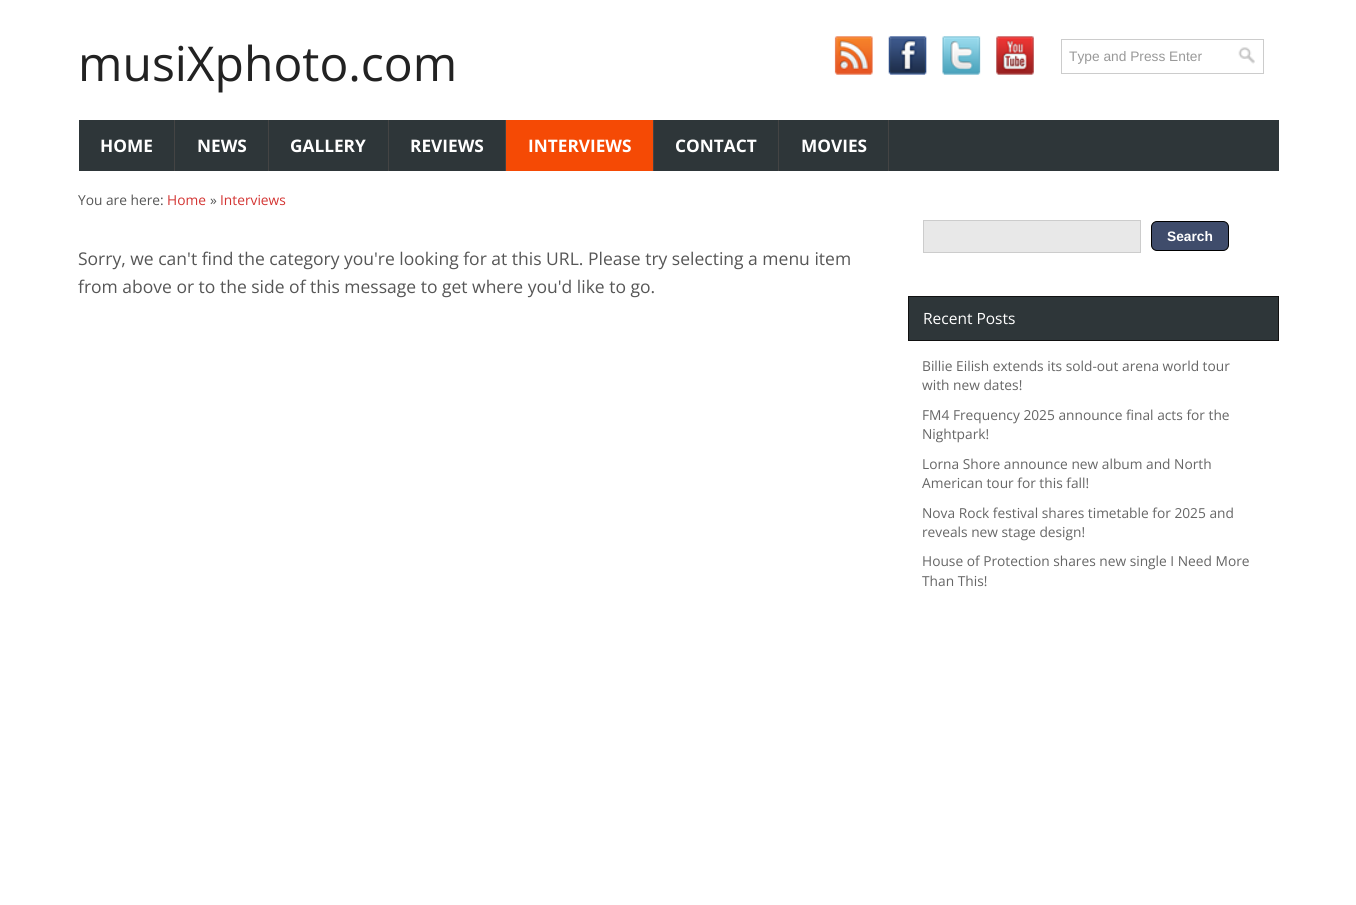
import math
import cairo



def rounded_rect(context, x, y, w, h, r):
    context.new_sub_path()
    for i, (u, v) in enumerate([(x + w - r, y + h - r), (x + r, y + h - r), (x + r, y + r), (x + w - r, y + r)]):
        context.arc(u, v, r, i * math.pi / 2, (i + 1) * math.pi / 2)
    context.close_path()


def draw_image(context, path, x, y, w, h):
    context.save()
    context.set_source_surface(cairo.ImageSurface.create_from_png(path), x, y)
    context.rectangle(x, y, w, h)
    context.fill()
    context.restore()


def draw(context):
    context.set_source_rgb(1, 1, 1)
    context.paint()
    draw_image(context, "images/1.png", 834, 36, 39, 39)
    draw_image(context, "images/2.png", 888, 36, 39, 39)
    draw_image(context, "images/3.png", 942, 36, 39, 39)
    draw_image(context, "images/4.png", 996, 36, 38, 39)
    draw_image(context, "images/5.png", 1238, 47, 17, 17)
    context.rectangle(1061.5, 39.5, 202, 34)
    context.set_source_rgb(204 / 255, 204 / 255, 204 / 255)
    context.set_line_width(1)
    context.stroke()
    context.set_source_rgb(46 / 255, 54 / 255, 57 / 255)
    context.rectangle(79, 120, 1200, 51)
    context.fill()
    context.set_source_rgb(68 / 255, 68 / 255, 68 / 255)
    context.rectangle(174, 120, 1, 51)
    context.fill()
    context.rectangle(268, 120, 1, 51)
    context.fill()
    context.rectangle(388, 120, 1, 51)
    context.fill()
    context.rectangle(505, 120, 1, 51)
    context.fill()
    context.set_source_rgb(245 / 255, 74 / 255, 5 / 255)
    context.rectangle(506, 120, 147, 51)
    context.fill()
    context.set_source_rgb(68 / 255, 68 / 255, 68 / 255)
    context.rectangle(653, 120, 1, 51)
    context.fill()
    context.rectangle(778, 120, 1, 51)
    context.fill()
    context.rectangle(888, 120, 1, 51)
    context.fill()
    context.set_source_rgb(232 / 255, 232 / 255, 232 / 255)
    context.rectangle(923.5, 220.5, 217, 32)
    context.fill_preserve()
    context.set_source_rgb(204 / 255, 204 / 255, 204 / 255)
    context.stroke()
    context.set_source_rgb(63 / 255, 76 / 255, 107 / 255)
    rounded_rect(context, 1151.5, 221.5, 77, 29, 5.5)
    context.fill_preserve()
    context.set_source_rgb(0, 0, 0)
    context.stroke()
    context.set_source_rgb(46 / 255, 54 / 255, 57 / 255)
    context.rectangle(908.5, 296.5, 370, 44)
    context.fill_preserve()
    context.set_source_rgb(17 / 255, 17 / 255, 17 / 255)
    context.stroke()
    context.select_font_face("Open Sans")
    context.set_font_size(48)
    context.set_source_rgb(34 / 255, 34 / 255, 34 / 255)
    context.move_to(78, 81)
    context.show_text("musiXphoto.com")
    context.select_font_face("Liberation Sans")
    context.set_font_size(13.75)
    context.set_source_rgb(153 / 255, 153 / 255, 153 / 255)
    context.move_to(1069, 61)
    context.show_text("Type and Press Enter")
    context.select_font_face("Open Sans", cairo.FontSlant.NORMAL, cairo.FontWeight.BOLD)
    context.set_font_size(17.25)
    context.set_source_rgb(1, 1, 1)
    context.move_to(100, 152)
    context.show_text("HOME")
    context.move_to(197, 152)
    context.show_text("NEWS")
    context.move_to(290, 152)
    context.show_text("GALLERY")
    context.move_to(410, 152)
    context.show_text("REVIEWS")
    context.move_to(528, 152)
    context.show_text("INTERVIEWS")
    context.move_to(675, 152)
    context.show_text("CONTACT")
    context.move_to(801, 152)
    context.show_text("MOVIES")
    context.select_font_face("Open Sans")
    context.set_font_size(13.75)
    context.set_source_rgb(86 / 255, 86 / 255, 86 / 255)
    context.move_to(78, 205)
    context.show_text("You are here:")
    context.set_source_rgb(211 / 255, 52 / 255, 50 / 255)
    context.move_to(167, 205)
    context.show_text("Home")
    context.set_source_rgb(86 / 255, 86 / 255, 86 / 255)
    context.move_to(210, 205)
    context.show_text("»")
    context.set_source_rgb(211 / 255, 52 / 255, 50 / 255)
    context.move_to(220, 205)
    context.show_text("Interviews")
    context.set_font_size(17.5)
    context.set_source_rgb(86 / 255, 86 / 255, 86 / 255)
    context.move_to(78, 265)
    context.show_text("Sorry, we can't find the category you're looking for at this URL. Please try selecting a menu item")
    context.move_to(78, 293)
    context.show_text("from above or to the side of this message to get where you'd like to go.")
    context.select_font_face("Liberation Sans", cairo.FontSlant.NORMAL, cairo.FontWeight.BOLD)
    context.set_font_size(13.75)
    context.set_source_rgb(1, 1, 1)
    context.move_to(1167, 241)
    context.show_text("Search")
    context.select_font_face("Open Sans")
    context.set_font_size(15.5)
    context.move_to(923, 324)
    context.show_text("Recent Posts")
    context.set_font_size(13.75)
    context.set_source_rgb(102 / 255, 102 / 255, 102 / 255)
    context.move_to(922, 371)
    context.show_text("Billie Eilish extends its sold-out arena world tour")
    context.move_to(922, 390)
    context.show_text("with new dates!")
    context.move_to(922, 420)
    context.show_text("FM4 Frequency 2025 announce final acts for the")
    context.move_to(922, 439)
    context.show_text("Nightpark!")
    context.move_to(922, 469)
    context.show_text("Lorna Shore announce new album and North")
    context.move_to(922, 488)
    context.show_text("American tour for this fall!")
    context.move_to(922, 518)
    context.show_text("Nova Rock festival shares timetable for 2025 and")
    context.move_to(922, 537)
    context.show_text("reveals new stage design!")
    context.move_to(922, 566)
    context.show_text("House of Protection shares new single I Need More")
    context.move_to(922, 586)
    context.show_text("Than This!")


surface = cairo.ImageSurface(cairo.Format.RGB24, 1356, 905)
context = cairo.Context(surface)
options = cairo.FontOptions()
options.set_hint_metrics(cairo.HintMetrics.OFF)
options.set_hint_style(cairo.HintStyle.NONE)
context.set_font_options(options)
context.set_miter_limit(4)
draw(context)
surface.write_to_png("out.png")
